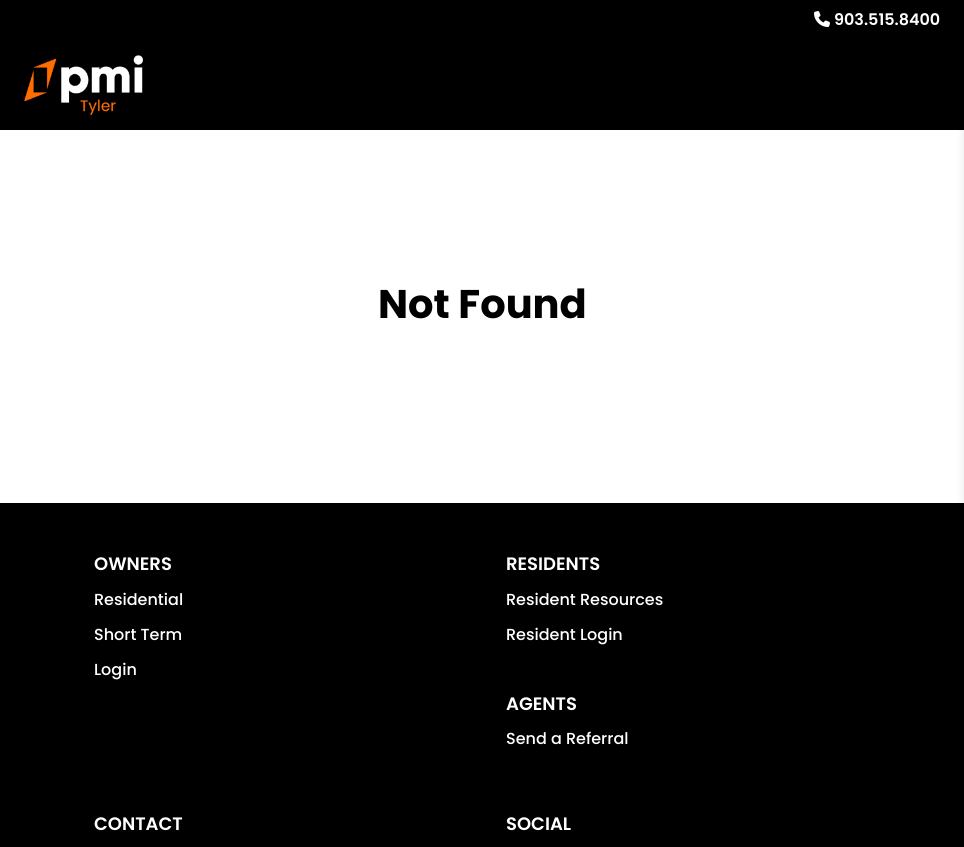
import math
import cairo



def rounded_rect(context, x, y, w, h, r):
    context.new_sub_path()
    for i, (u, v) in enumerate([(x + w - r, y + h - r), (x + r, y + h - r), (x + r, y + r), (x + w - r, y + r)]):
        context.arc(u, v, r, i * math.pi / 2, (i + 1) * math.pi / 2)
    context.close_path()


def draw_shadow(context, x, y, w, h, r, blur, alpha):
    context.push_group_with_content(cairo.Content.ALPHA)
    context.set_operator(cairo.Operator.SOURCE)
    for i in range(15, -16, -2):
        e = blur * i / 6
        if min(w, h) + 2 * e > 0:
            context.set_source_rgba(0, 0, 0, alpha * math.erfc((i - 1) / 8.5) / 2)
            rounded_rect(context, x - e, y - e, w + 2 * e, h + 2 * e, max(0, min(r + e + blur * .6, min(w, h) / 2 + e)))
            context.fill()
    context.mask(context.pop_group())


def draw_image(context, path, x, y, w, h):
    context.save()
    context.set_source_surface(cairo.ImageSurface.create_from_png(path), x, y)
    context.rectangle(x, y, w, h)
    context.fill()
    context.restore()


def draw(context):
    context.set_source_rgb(1, 1, 1)
    context.paint()
    context.set_source_rgb(0, 0, 0)
    context.rectangle(0, 0, 964, 130)
    context.fill()
    draw_image(context, "images/1.png", 814, 11, 16, 16)
    draw_image(context, "images/2.png", 24, 55, 119, 60)
    context.rectangle(0, 503, 964, 344)
    context.fill()
    context.set_source_rgb(0, 0, 0)
    draw_shadow(context, 964, 0, 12, 847, 0, 4, 0.1)
    context.select_font_face("Poppins SemiBold")
    context.set_font_size(16)
    context.set_source_rgb(1, 1, 1)
    context.move_to(834, 25)
    context.show_text("903.515.8400")
    context.select_font_face("Poppins", cairo.FontSlant.NORMAL, cairo.FontWeight.BOLD)
    context.set_font_size(40)
    context.set_source_rgb(0, 0, 0)
    context.move_to(378, 318)
    context.show_text("Not Found")
    context.select_font_face("Poppins SemiBold")
    context.set_font_size(18)
    context.set_source_rgb(1, 1, 1)
    context.move_to(94, 570)
    context.show_text("OWNERS")
    context.select_font_face("Poppins Medium")
    context.set_font_size(16)
    context.move_to(94, 605)
    context.show_text("Residential")
    context.move_to(94, 640)
    context.show_text("Short Term")
    context.move_to(94, 675)
    context.show_text("Login")
    context.select_font_face("Poppins SemiBold")
    context.set_font_size(18)
    context.move_to(506, 570)
    context.show_text("RESIDENTS")
    context.select_font_face("Poppins Medium")
    context.set_font_size(16)
    context.move_to(506, 605)
    context.show_text("Resident Resources")
    context.move_to(506, 640)
    context.show_text("Resident Login")
    context.select_font_face("Poppins SemiBold")
    context.set_font_size(18)
    context.move_to(506, 710)
    context.show_text("AGENTS")
    context.select_font_face("Poppins Medium")
    context.set_font_size(16)
    context.move_to(506, 744)
    context.show_text("Send a Referral")
    context.select_font_face("Poppins SemiBold")
    context.set_font_size(18)
    context.move_to(94, 830)
    context.show_text("CONTACT")
    context.move_to(506, 830)
    context.show_text("SOCIAL")


surface = cairo.ImageSurface(cairo.Format.RGB24, 964, 847)
context = cairo.Context(surface)
options = cairo.FontOptions()
options.set_hint_metrics(cairo.HintMetrics.OFF)
options.set_hint_style(cairo.HintStyle.NONE)
context.set_font_options(options)
context.set_miter_limit(4)
draw(context)
surface.write_to_png("out.png")
